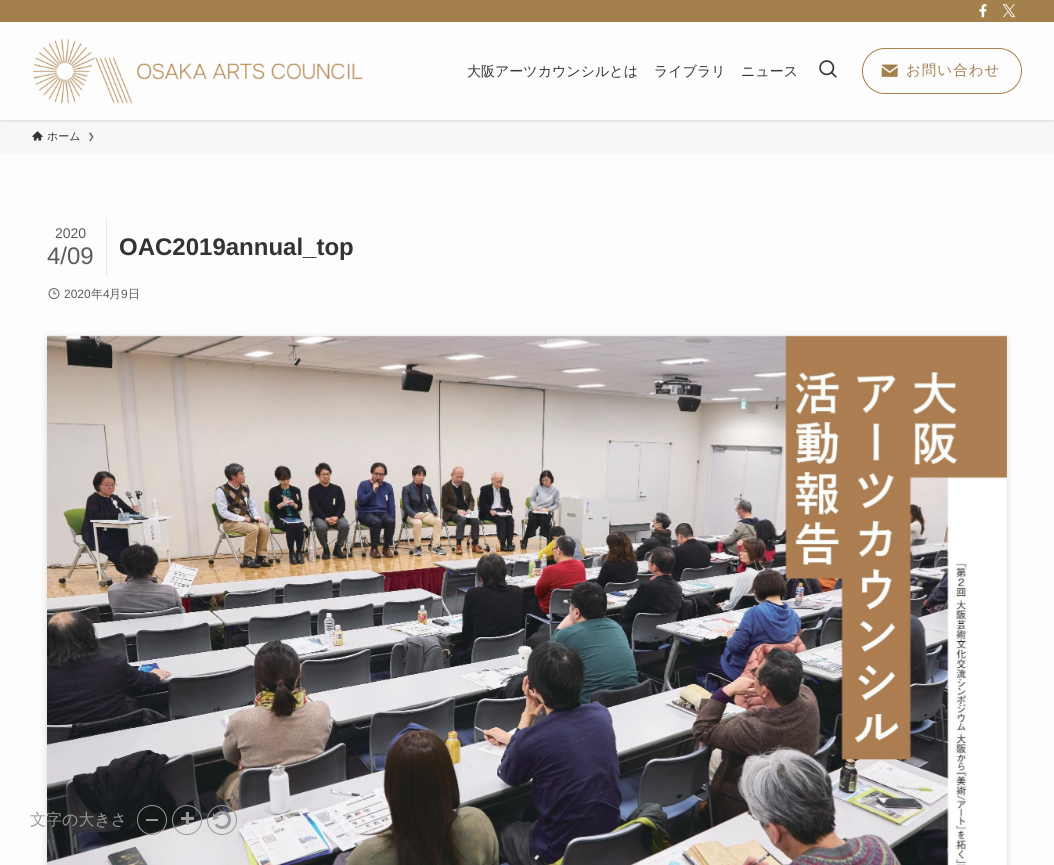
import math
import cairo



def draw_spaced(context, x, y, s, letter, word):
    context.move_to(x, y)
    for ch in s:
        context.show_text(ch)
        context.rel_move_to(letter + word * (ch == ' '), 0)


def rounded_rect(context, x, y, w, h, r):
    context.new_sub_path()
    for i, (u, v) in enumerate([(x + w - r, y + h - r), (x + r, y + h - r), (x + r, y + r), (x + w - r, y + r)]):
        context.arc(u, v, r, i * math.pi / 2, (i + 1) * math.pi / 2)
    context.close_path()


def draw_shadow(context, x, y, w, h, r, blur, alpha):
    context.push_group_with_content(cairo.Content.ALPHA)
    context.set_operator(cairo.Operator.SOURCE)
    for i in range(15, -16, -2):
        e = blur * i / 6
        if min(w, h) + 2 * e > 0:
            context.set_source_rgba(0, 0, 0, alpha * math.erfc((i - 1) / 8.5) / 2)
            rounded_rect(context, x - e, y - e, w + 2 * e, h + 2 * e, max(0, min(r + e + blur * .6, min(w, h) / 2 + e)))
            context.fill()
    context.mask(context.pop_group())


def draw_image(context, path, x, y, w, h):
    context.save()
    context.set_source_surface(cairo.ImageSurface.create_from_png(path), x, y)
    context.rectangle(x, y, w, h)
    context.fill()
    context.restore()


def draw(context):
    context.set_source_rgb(253 / 255, 253 / 255, 253 / 255)
    context.paint()
    context.set_source_rgb(247 / 255, 247 / 255, 247 / 255)
    context.rectangle(0, 120, 1054, 34)
    context.fill()
    context.save()
    context.rectangle(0, 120, 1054, 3)
    context.clip()
    context.set_source_rgb(0, 0, 0)
    draw_shadow(context, 0, 1, 1054, 120, 0, 2, 0.12)
    context.restore()
    context.set_source_rgb(164 / 255, 128 / 255, 76 / 255)
    context.rectangle(0, 0, 1054, 22)
    context.fill()
    draw_image(context, "images/1.png", 979, 4, 8, 14)
    draw_image(context, "images/2.png", 1002, 4, 14, 14)
    draw_image(context, "images/3.png", 32, 39, 331, 65)
    draw_image(context, "images/4.png", 819, 60, 18, 18)
    rounded_rect(context, 862.5, 48.5, 159, 45, 22.5)
    context.set_line_width(1)
    context.stroke()
    draw_image(context, "images/5.png", 881, 64, 17, 13)
    draw_image(context, "images/6.png", 32, 131, 11, 10)
    context.set_source_rgb(90 / 255, 90 / 255, 90 / 255)
    context.new_path()
    context.move_to(90.5, 132.5)
    context.line_to(89, 133)
    context.line_to(92, 137)
    context.line_to(89, 141)
    context.line_to(90.5, 141)
    context.line_to(93.5, 137)
    context.close_path()
    context.fill()
    context.set_source_rgb(232 / 255, 232 / 255, 232 / 255)
    context.rectangle(106, 218, 1, 58)
    context.fill()
    draw_image(context, "images/7.png", 48, 288, 12, 12)
    context.set_source_rgb(0, 0, 0)
    draw_shadow(context, 51, 344, 952, 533, 0, 4, 0.2)
    draw_shadow(context, 47, 338, 960, 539, 0, 4, 0.1)
    draw_image(context, "images/8.png", 47, 335, 960, 530)
    context.arc(152, 820, 14.5, 0, 2 * math.pi)
    context.set_source_rgb(153 / 255, 153 / 255, 153 / 255)
    context.stroke()
    context.rectangle(146, 819, 12, 2)
    context.fill()
    context.arc(187, 820, 14.5, 0, 2 * math.pi)
    context.stroke()
    draw_image(context, "images/9.png", 181, 812, 13, 13)
    context.arc(222, 820, 14.5, 0, 2 * math.pi)
    context.stroke()
    draw_image(context, "images/10.png", 213, 811, 18, 18)
    context.select_font_face("WenQuanYi Zen Hei Medium")
    context.set_font_size(14)
    context.set_source_rgb(51 / 255, 51 / 255, 51 / 255)
    context.move_to(467, 76)
    context.show_text("大阪アーツカウンシルとは")
    context.move_to(654, 76)
    context.show_text("ライブラリ")
    context.move_to(741, 76)
    context.show_text("ニュース")
    context.set_font_size(14.5)
    context.set_source_rgb(164 / 255, 128 / 255, 76 / 255)
    draw_spaced(context, 906, 75, "お問い合わせ", 1, 0)
    context.set_font_size(11)
    context.set_source_rgb(51 / 255, 51 / 255, 51 / 255)
    context.move_to(47, 140)
    context.show_text("ホーム")
    context.select_font_face("Liberation Sans")
    context.set_font_size(14)
    context.set_source_rgb(91 / 255, 91 / 255, 91 / 255)
    context.move_to(55, 238)
    context.show_text("2020")
    context.set_font_size(24)
    context.move_to(47, 264)
    context.show_text("4/09")
    context.select_font_face("Liberation Sans", cairo.FontSlant.NORMAL, cairo.FontWeight.BOLD)
    context.set_source_rgb(51 / 255, 51 / 255, 51 / 255)
    context.move_to(119, 255)
    context.show_text("OAC2019annual_top")
    context.select_font_face("Liberation Sans")
    context.set_font_size(12)
    context.set_source_rgb(91 / 255, 91 / 255, 91 / 255)
    context.move_to(64, 298)
    context.show_text("2020")
    context.select_font_face("WenQuanYi Zen Hei Medium")
    context.move_to(91, 298)
    context.show_text("年")
    context.select_font_face("Liberation Sans")
    context.move_to(103, 298)
    context.show_text("4")
    context.select_font_face("WenQuanYi Zen Hei Medium")
    context.move_to(109, 298)
    context.show_text("月")
    context.select_font_face("Liberation Sans")
    context.move_to(121, 298)
    context.show_text("9")
    context.select_font_face("WenQuanYi Zen Hei Medium")
    context.move_to(128, 298)
    context.show_text("日")
    context.set_font_size(16)
    context.set_source_rgb(153 / 255, 153 / 255, 153 / 255)
    context.move_to(30, 825)
    context.show_text("文字の大きさ")


surface = cairo.ImageSurface(cairo.Format.RGB24, 1054, 865)
context = cairo.Context(surface)
options = cairo.FontOptions()
options.set_hint_metrics(cairo.HintMetrics.OFF)
options.set_hint_style(cairo.HintStyle.NONE)
context.set_font_options(options)
context.set_miter_limit(4)
draw(context)
surface.write_to_png("out.png")
